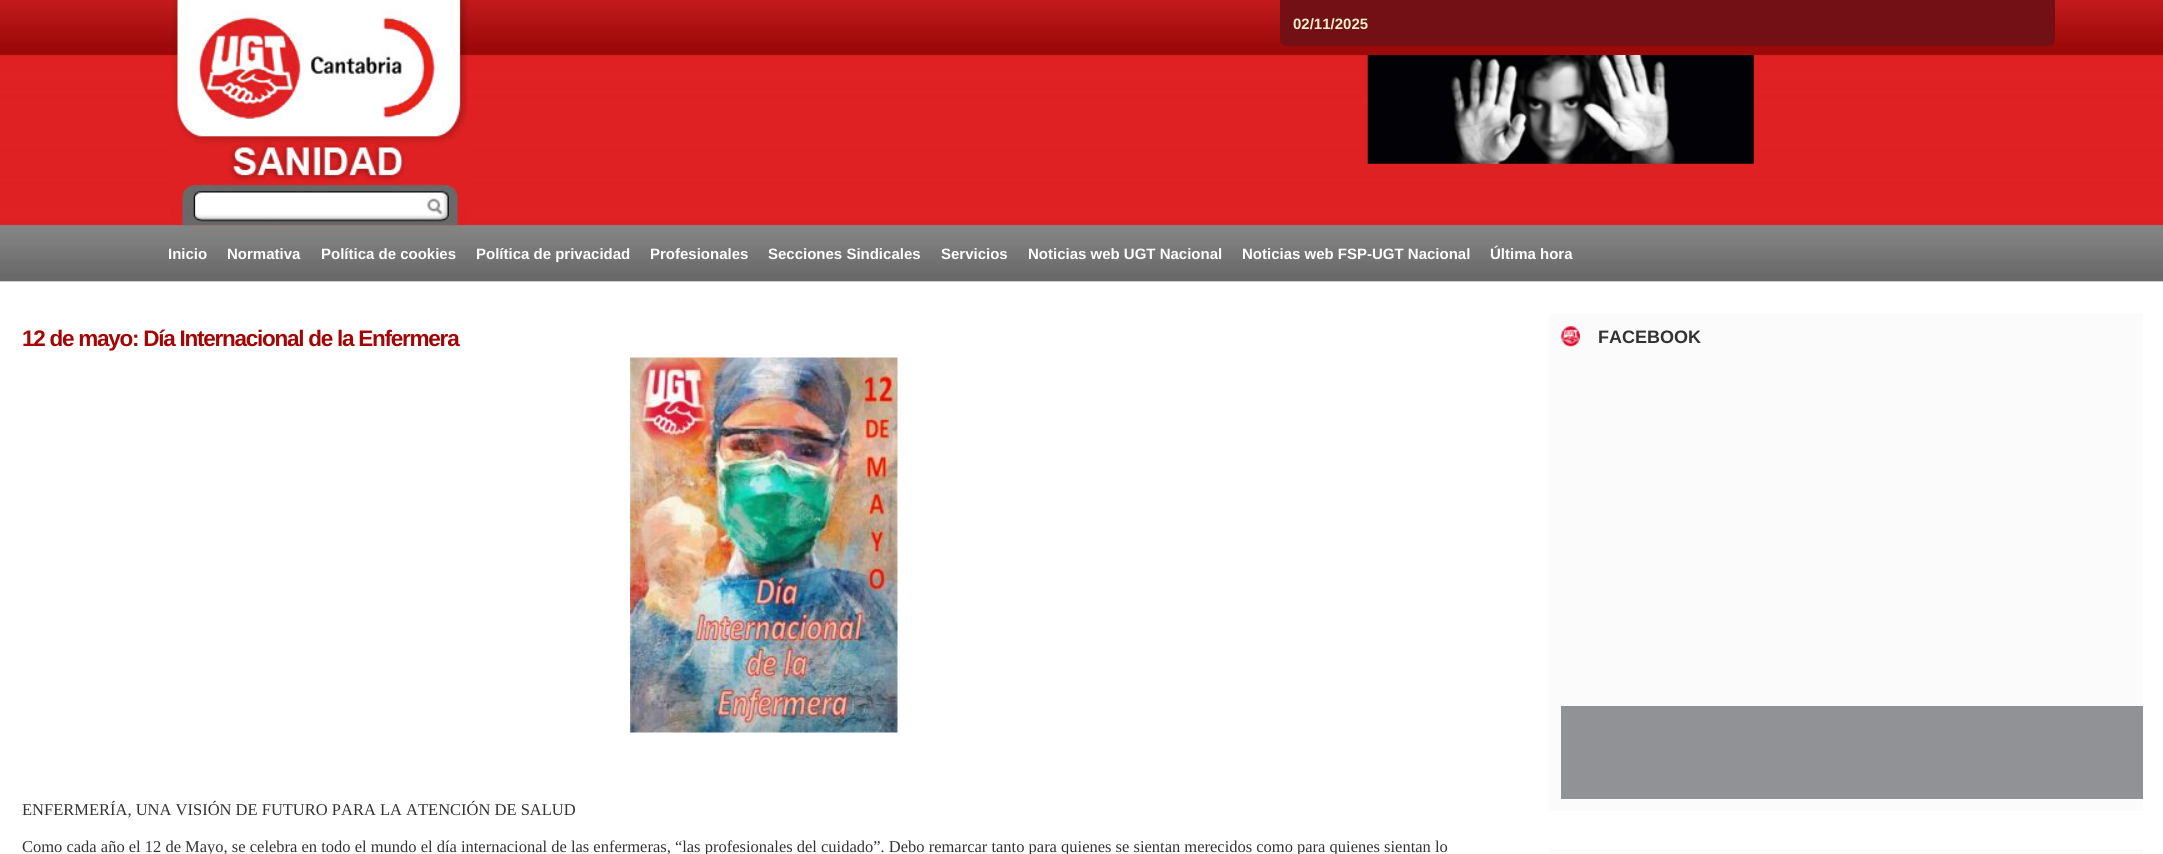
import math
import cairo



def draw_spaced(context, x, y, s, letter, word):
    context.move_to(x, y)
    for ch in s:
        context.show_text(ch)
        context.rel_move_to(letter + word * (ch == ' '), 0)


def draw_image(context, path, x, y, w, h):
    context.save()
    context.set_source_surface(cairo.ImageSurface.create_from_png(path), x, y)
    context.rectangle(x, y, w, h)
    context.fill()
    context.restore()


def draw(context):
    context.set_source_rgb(1, 1, 1)
    context.paint()
    draw_image(context, "images/1.png", 0, 0, 2163, 289)
    draw_image(context, "images/2.png", 171, 0, 297, 225)
    context.set_source_rgb(115 / 255, 16 / 255, 21 / 255)
    context.new_path()
    context.move_to(1280, 0)
    context.line_to(2055, 0)
    context.line_to(2055, 40)
    context.curve_to(2055, 43.5, 2052.5, 46, 2049, 46)
    context.line_to(1286, 46)
    context.curve_to(1282.5, 46, 1280, 43.5, 1280, 40)
    context.close_path()
    context.fill()
    draw_image(context, "images/3.png", 1367, 55, 387, 109)
    draw_image(context, "images/4.png", 630, 357, 268, 376)
    context.set_source_rgb(251 / 255, 251 / 255, 251 / 255)
    context.rectangle(1549, 314, 594, 497)
    context.fill()
    draw_image(context, "images/5.png", 1561, 326, 19, 21)
    context.set_source_rgb(145 / 255, 146 / 255, 150 / 255)
    context.rectangle(1561, 706, 582, 93)
    context.fill()
    context.set_source_rgb(251 / 255, 251 / 255, 251 / 255)
    context.rectangle(1549, 849, 594, 5)
    context.fill()
    context.select_font_face("Liberation Sans", cairo.FontSlant.NORMAL, cairo.FontWeight.BOLD)
    context.set_font_size(15)
    context.set_source_rgb(238 / 255, 238 / 255, 203 / 255)
    context.move_to(1293, 29)
    context.show_text("02/11/2025")
    context.set_source_rgb(1, 1, 1)
    context.move_to(168, 259)
    context.show_text("Inicio")
    context.move_to(227, 259)
    context.show_text("Normativa")
    context.move_to(321, 259)
    context.show_text("Política de cookies")
    context.move_to(476, 259)
    context.show_text("Política de privacidad")
    context.move_to(650, 259)
    context.show_text("Profesionales")
    context.move_to(768, 259)
    context.show_text("Secciones Sindicales")
    context.move_to(941, 259)
    context.show_text("Servicios")
    context.move_to(1028, 259)
    context.show_text("Noticias web UGT Nacional")
    context.move_to(1242, 259)
    context.show_text("Noticias web FSP-UGT Nacional")
    context.move_to(1490, 259)
    context.show_text("Última hora")
    context.set_font_size(22.5)
    context.set_source_rgb(164 / 255, 5 / 255, 5 / 255)
    draw_spaced(context, 22, 346, "12 de mayo: Día Internacional de la Enfermera", -1.25, 0)
    context.select_font_face("Liberation Serif")
    context.set_font_size(16.5)
    context.set_source_rgb(51 / 255, 51 / 255, 51 / 255)
    context.move_to(22, 815)
    context.show_text("ENFERMERÍA, UNA VISIÓN DE FUTURO PARA LA ATENCIÓN DE SALUD")
    context.move_to(22, 852)
    context.show_text("Como cada año el 12 de Mayo, se celebra en todo el mundo el día internacional de las enfermeras, “las profesionales del cuidado”. Debo remarcar tanto para quienes se sientan merecidos como para quienes sientan lo")
    context.select_font_face("Liberation Sans", cairo.FontSlant.NORMAL, cairo.FontWeight.BOLD)
    context.set_font_size(18)
    context.move_to(1598, 343)
    context.show_text("FACEBOOK")


surface = cairo.ImageSurface(cairo.Format.RGB24, 2163, 854)
context = cairo.Context(surface)
options = cairo.FontOptions()
options.set_hint_metrics(cairo.HintMetrics.OFF)
options.set_hint_style(cairo.HintStyle.NONE)
context.set_font_options(options)
context.set_miter_limit(4)
draw(context)
surface.write_to_png("out.png")
